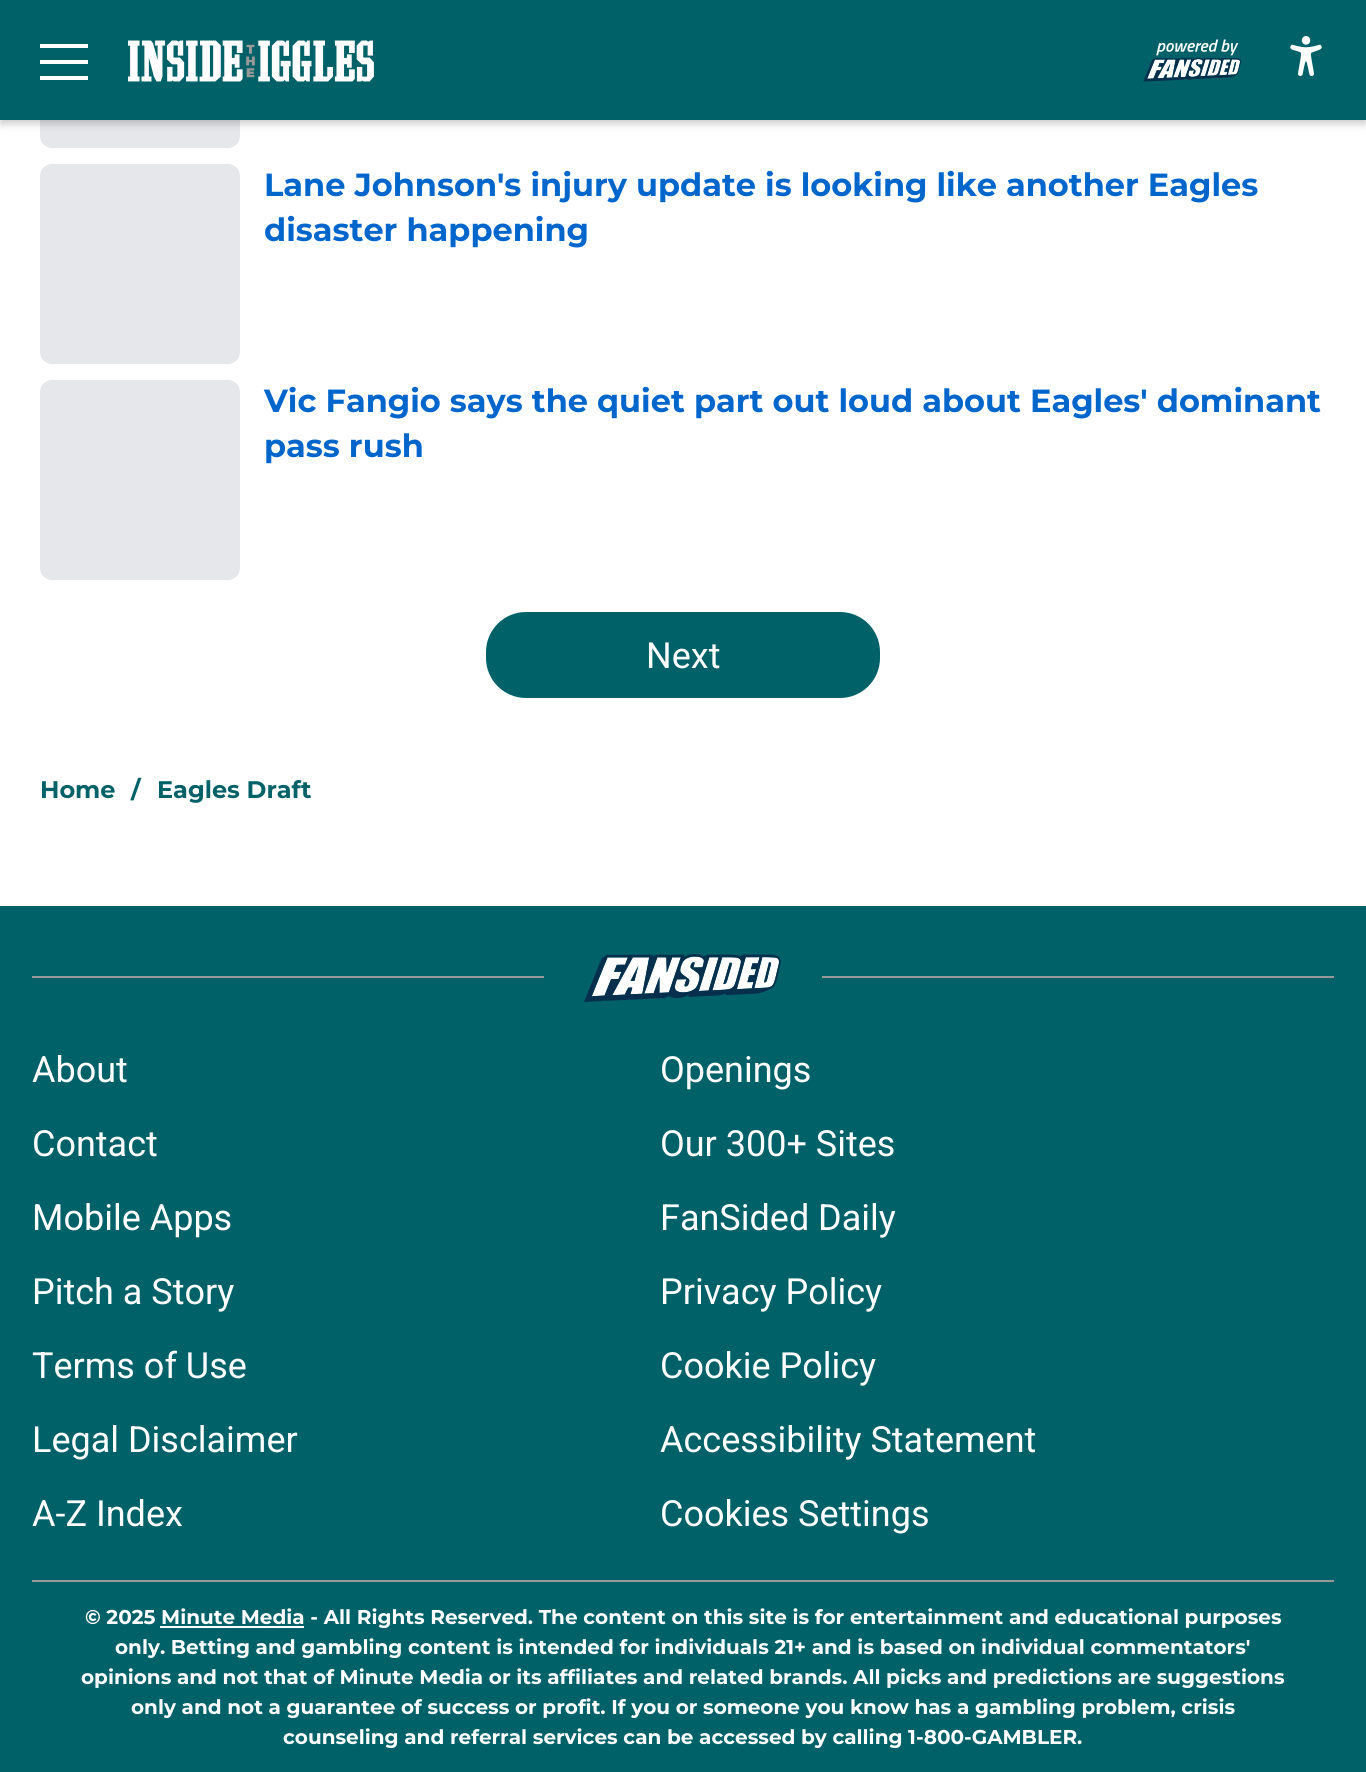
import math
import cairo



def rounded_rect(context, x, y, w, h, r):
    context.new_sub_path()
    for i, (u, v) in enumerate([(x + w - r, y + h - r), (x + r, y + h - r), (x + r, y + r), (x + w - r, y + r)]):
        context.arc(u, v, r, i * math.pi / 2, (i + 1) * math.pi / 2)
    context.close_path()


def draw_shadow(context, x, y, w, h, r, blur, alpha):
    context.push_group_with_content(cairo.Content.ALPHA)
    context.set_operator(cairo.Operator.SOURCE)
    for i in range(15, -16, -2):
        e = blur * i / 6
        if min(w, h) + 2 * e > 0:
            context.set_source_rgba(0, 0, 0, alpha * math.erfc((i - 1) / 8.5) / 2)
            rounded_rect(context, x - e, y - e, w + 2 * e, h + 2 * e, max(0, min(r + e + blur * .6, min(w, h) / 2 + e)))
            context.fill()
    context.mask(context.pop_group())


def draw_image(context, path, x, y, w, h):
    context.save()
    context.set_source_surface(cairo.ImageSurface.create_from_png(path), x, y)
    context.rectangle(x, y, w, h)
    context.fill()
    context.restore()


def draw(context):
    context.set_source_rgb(1, 1, 1)
    context.paint()
    context.set_source_rgb(229 / 255, 231 / 255, 235 / 255)
    rounded_rect(context, 40, -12, 200, 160, 12)
    context.fill()
    context.set_source_rgb(0, 0, 0)
    draw_shadow(context, 0, 4, 1366, 120, 0, 4, 0.2)
    context.set_source_rgb(0, 97 / 255, 104 / 255)
    context.rectangle(0, 0, 1366, 120)
    context.fill()
    context.set_source_rgb(1, 1, 1)
    context.rectangle(40, 44, 48, 4)
    context.fill()
    context.rectangle(40, 60, 48, 4)
    context.fill()
    context.rectangle(40, 76, 48, 4)
    context.fill()
    draw_image(context, "images/1.png", 128, 40, 246, 42)
    draw_image(context, "images/2.png", 1143, 39, 98, 43)
    draw_image(context, "images/3.png", 1290, 36, 32, 40)
    context.set_source_rgb(229 / 255, 231 / 255, 235 / 255)
    rounded_rect(context, 40, 164, 200, 200, 12)
    context.fill()
    rounded_rect(context, 40, 380, 200, 200, 12)
    context.fill()
    context.set_source_rgb(0, 97 / 255, 104 / 255)
    rounded_rect(context, 486, 612, 394, 86, 40)
    context.fill()
    context.rectangle(0, 906, 1366, 866)
    context.fill()
    context.set_source_rgb(153 / 255, 153 / 255, 153 / 255)
    context.rectangle(32, 976, 512, 2)
    context.fill()
    draw_image(context, "images/4.png", 584, 954, 197, 48)
    context.rectangle(822, 976, 512, 2)
    context.fill()
    context.rectangle(32, 1580, 1302, 2)
    context.fill()
    context.set_source_rgb(1, 1, 1)
    context.rectangle(160, 1626, 144, 2)
    context.fill()
    context.select_font_face("Montserrat Thin")
    context.set_font_size(32)
    context.set_source_rgb(0, 102 / 255, 204 / 255)
    context.move_to(264, 196)
    context.show_text("Lane Johnson's injury update is looking like another Eagles")
    context.move_to(264, 241)
    context.show_text("disaster happening")
    context.move_to(264, 412)
    context.show_text("Vic Fangio says the quiet part out loud about Eagles' dominant")
    context.move_to(264, 457)
    context.show_text("pass rush")
    context.select_font_face("Roboto")
    context.set_font_size(36)
    context.set_source_rgb(1, 1, 1)
    context.move_to(646, 668)
    context.show_text("Next")
    context.select_font_face("Montserrat Thin")
    context.set_font_size(24)
    context.set_source_rgb(0, 97 / 255, 104 / 255)
    context.move_to(40, 798)
    context.show_text("Home")
    context.move_to(131, 798)
    context.show_text("/")
    context.move_to(157, 798)
    context.show_text("Eagles Draft")
    context.select_font_face("Roboto")
    context.set_font_size(36)
    context.set_source_rgb(1, 1, 1)
    context.move_to(32, 1082)
    context.show_text("About")
    context.move_to(660, 1082)
    context.show_text("Openings")
    context.move_to(32, 1156)
    context.show_text("Contact")
    context.move_to(660, 1156)
    context.show_text("Our 300+ Sites")
    context.move_to(32, 1230)
    context.show_text("Mobile Apps")
    context.move_to(660, 1230)
    context.show_text("FanSided Daily")
    context.move_to(32, 1304)
    context.show_text("Pitch a Story")
    context.move_to(660, 1304)
    context.show_text("Privacy Policy")
    context.move_to(32, 1378)
    context.show_text("Terms of Use")
    context.move_to(660, 1378)
    context.show_text("Cookie Policy")
    context.move_to(32, 1452)
    context.show_text("Legal Disclaimer")
    context.move_to(660, 1452)
    context.show_text("Accessibility Statement")
    context.move_to(32, 1526)
    context.show_text("A-Z Index")
    context.move_to(660, 1526)
    context.show_text("Cookies Settings")
    context.select_font_face("Montserrat Thin")
    context.set_font_size(20)
    context.move_to(85, 1624)
    context.show_text("© 2025 Minute Media - All Rights Reserved. The content on this site is for entertainment and educational purposes")
    context.move_to(115, 1654)
    context.show_text("only. Betting and gambling content is intended for individuals 21+ and is based on individual commentators'")
    context.move_to(81, 1684)
    context.show_text("opinions and not that of Minute Media or its affiliates and related brands. All picks and predictions are suggestions")
    context.move_to(131, 1714)
    context.show_text("only and not a guarantee of success or profit. If you or someone you know has a gambling problem, crisis")
    context.move_to(283, 1744)
    context.show_text("counseling and referral services can be accessed by calling 1-800-GAMBLER.")


surface = cairo.ImageSurface(cairo.Format.RGB24, 1366, 1772)
context = cairo.Context(surface)
options = cairo.FontOptions()
options.set_hint_metrics(cairo.HintMetrics.OFF)
options.set_hint_style(cairo.HintStyle.NONE)
context.set_font_options(options)
context.set_miter_limit(4)
draw(context)
surface.write_to_png("out.png")
